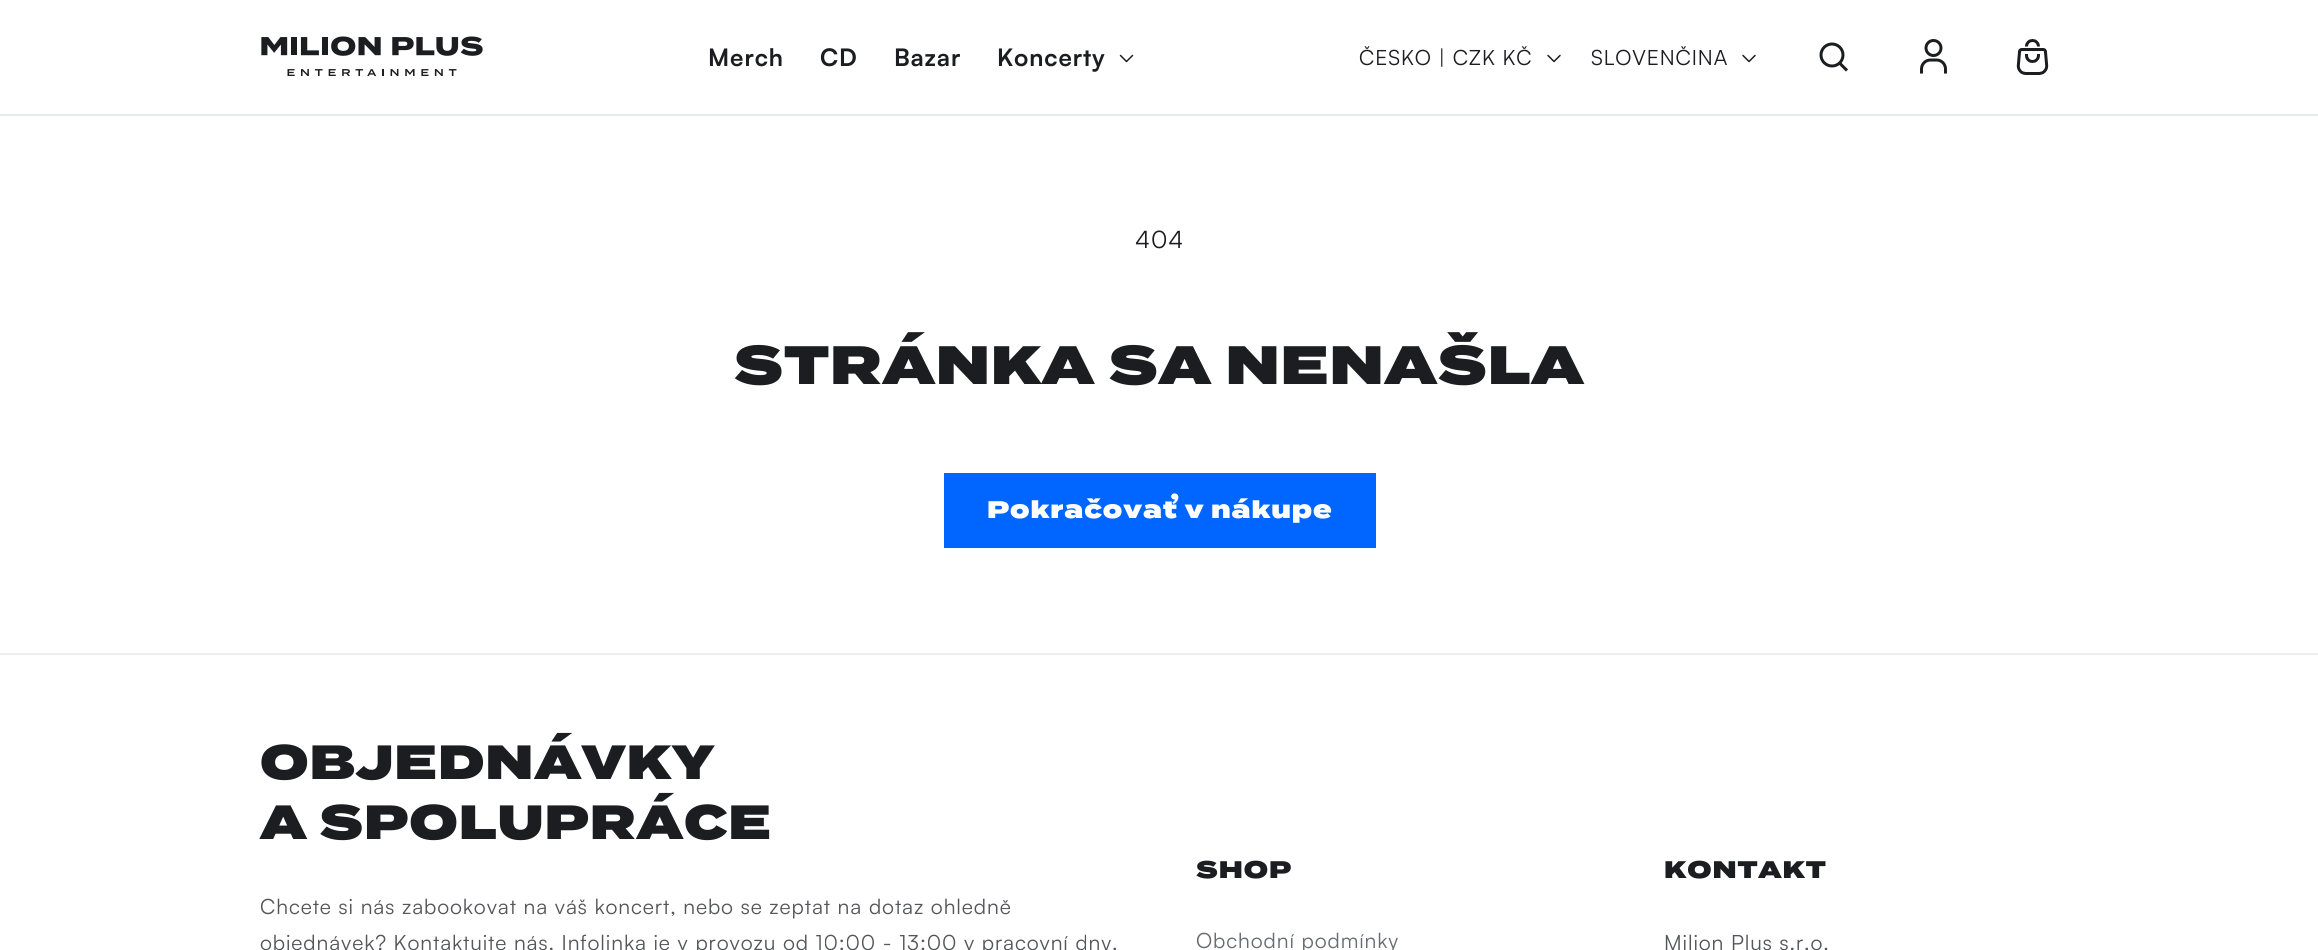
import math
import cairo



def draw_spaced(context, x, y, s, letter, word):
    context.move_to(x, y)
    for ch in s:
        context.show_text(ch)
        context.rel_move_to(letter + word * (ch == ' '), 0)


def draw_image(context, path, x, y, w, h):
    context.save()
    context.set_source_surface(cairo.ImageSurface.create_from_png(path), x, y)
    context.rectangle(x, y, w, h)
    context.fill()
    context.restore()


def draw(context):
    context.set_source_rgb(1, 1, 1)
    context.paint()
    context.set_source_rgb(230 / 255, 235 / 255, 237 / 255)
    context.rectangle(0, 114, 2318, 2)
    context.fill()
    draw_image(context, "images/1.png", 261, 36, 222, 41)
    draw_image(context, "images/2.png", 1119, 54, 15, 9)
    draw_image(context, "images/3.png", 1547, 54, 14, 9)
    draw_image(context, "images/3.png", 1742, 54, 14, 9)
    context.arc(1832, 55, 11, 0, 2 * math.pi)
    context.set_source_rgb(28 / 255, 29 / 255, 33 / 255)
    context.set_line_width(3)
    context.stroke()
    context.new_path()
    context.move_to(1839.5, 63)
    context.line_to(1847, 70.5)
    context.stroke()
    context.arc(1933.5, 48, 7.5, 0, 2 * math.pi)
    context.stroke()
    context.new_path()
    context.move_to(1921.5, 73.5)
    context.line_to(1921.5, 69)
    context.curve_to(1921.5, 64, 1925.5, 60, 1930.5, 60)
    context.line_to(1936.5, 60)
    context.curve_to(1941.5, 60, 1945.5, 64, 1945.5, 69)
    context.line_to(1945.5, 73.5)
    context.stroke()
    draw_image(context, "images/4.png", 2016, 39, 33, 36)
    context.set_source_rgb(0, 102 / 255, 1)
    context.rectangle(944, 473, 432, 75)
    context.fill()
    context.set_source_rgb(237 / 255, 237 / 255, 237 / 255)
    context.rectangle(0, 653, 2318, 2)
    context.fill()
    context.select_font_face("Satoshi", cairo.FontSlant.NORMAL, cairo.FontWeight.BOLD)
    context.set_font_size(24)
    context.set_source_rgb(28 / 255, 29 / 255, 33 / 255)
    draw_spaced(context, 708, 66, "Merch", 0.9, 0)
    draw_spaced(context, 820, 66, "CD", 0.9, 0)
    draw_spaced(context, 894, 66, "Bazar", 0.9, 0)
    draw_spaced(context, 997, 66, "Koncerty", 0.9, 0)
    context.select_font_face("Satoshi")
    context.set_font_size(21)
    draw_spaced(context, 1359, 65, "ČESKO | CZK KČ", 0.9, 0)
    draw_spaced(context, 1591, 65, "SLOVENČINA", 0.9, 0)
    context.set_font_size(24)
    draw_spaced(context, 1135, 248, "404", 0.9, 0)
    context.select_font_face("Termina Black")
    context.set_font_size(54)
    draw_spaced(context, 734, 384, "STRÁNKA SA NENAŠLA", 0.9, 0)
    context.set_font_size(24)
    context.set_source_rgb(1, 1, 1)
    draw_spaced(context, 987, 518, "Pokračovať v nákupe", 0.9, 0)
    context.set_font_size(48)
    context.set_source_rgb(28 / 255, 29 / 255, 33 / 255)
    draw_spaced(context, 260, 779, "OBJEDNÁVKY", 0.9, 0)
    draw_spaced(context, 260, 839, "A SPOLUPRÁCE", 0.9, 0)
    context.select_font_face("Satoshi")
    context.set_font_size(21)
    context.set_source_rgb(85 / 255, 86 / 255, 89 / 255)
    draw_spaced(context, 260, 914, "Chcete si nás zabookovat na váš koncert, nebo se zeptat na dotaz ohledně", 0.9, 0)
    draw_spaced(context, 260, 950, "objednávek? Kontaktujte nás. Infolinka je v provozu od 10:00 - 13:00 v pracovní dny.", 0.9, 0)
    context.select_font_face("Termina Black")
    context.set_font_size(24)
    context.set_source_rgb(28 / 255, 29 / 255, 33 / 255)
    draw_spaced(context, 1196, 878, "SHOP", 0.9, 0)
    context.select_font_face("Satoshi")
    context.set_font_size(21)
    context.set_source_rgb(104 / 255, 107 / 255, 113 / 255)
    draw_spaced(context, 1196, 948, "Obchodní podmínky", 0.9, 0)
    context.select_font_face("Termina Black")
    context.set_font_size(24)
    context.set_source_rgb(28 / 255, 29 / 255, 33 / 255)
    draw_spaced(context, 1664, 878, "KONTAKT", 0.9, 0)
    context.select_font_face("Satoshi")
    context.set_font_size(21)
    context.set_source_rgb(85 / 255, 86 / 255, 89 / 255)
    draw_spaced(context, 1664, 950, "Milion Plus s.r.o.", 0.9, 0)


surface = cairo.ImageSurface(cairo.Format.RGB24, 2318, 950)
context = cairo.Context(surface)
options = cairo.FontOptions()
options.set_hint_metrics(cairo.HintMetrics.OFF)
options.set_hint_style(cairo.HintStyle.NONE)
context.set_font_options(options)
context.set_miter_limit(4)
draw(context)
surface.write_to_png("out.png")
